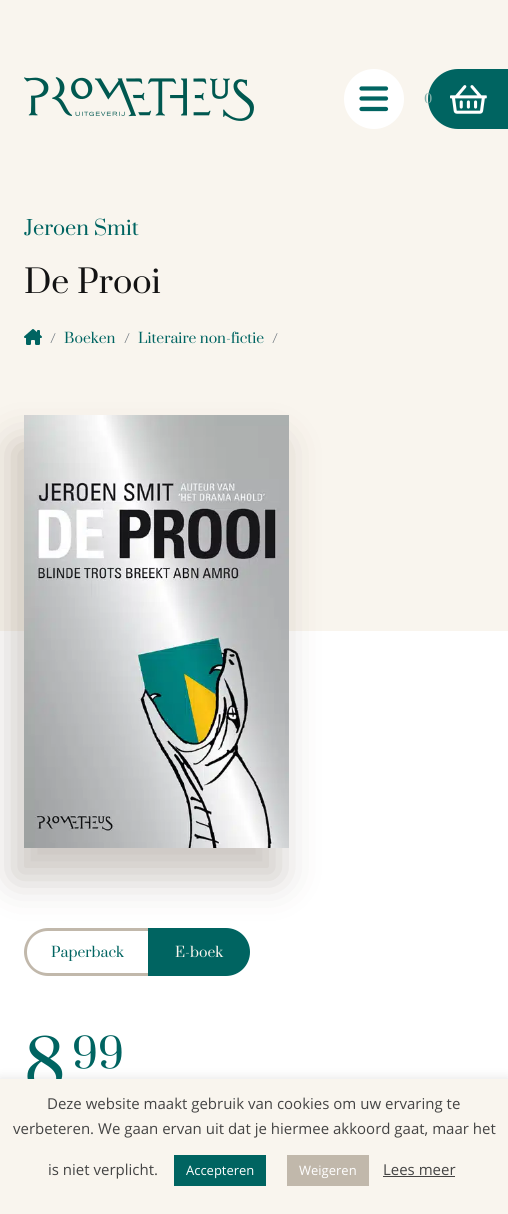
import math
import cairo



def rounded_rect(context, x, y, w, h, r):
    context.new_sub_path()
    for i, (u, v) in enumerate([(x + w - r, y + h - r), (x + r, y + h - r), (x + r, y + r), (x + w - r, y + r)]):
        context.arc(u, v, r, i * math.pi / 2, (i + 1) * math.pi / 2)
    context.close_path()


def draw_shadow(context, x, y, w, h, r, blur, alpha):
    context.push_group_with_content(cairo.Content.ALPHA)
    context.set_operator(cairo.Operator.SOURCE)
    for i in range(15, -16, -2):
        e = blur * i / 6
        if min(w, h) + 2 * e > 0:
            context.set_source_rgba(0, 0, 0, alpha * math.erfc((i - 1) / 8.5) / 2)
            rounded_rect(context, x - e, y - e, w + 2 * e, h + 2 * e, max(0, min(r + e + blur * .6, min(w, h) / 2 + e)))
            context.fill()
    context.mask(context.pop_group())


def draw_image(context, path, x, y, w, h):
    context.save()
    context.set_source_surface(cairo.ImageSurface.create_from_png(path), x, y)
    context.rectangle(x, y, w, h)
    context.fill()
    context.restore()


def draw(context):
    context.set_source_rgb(1, 1, 1)
    context.paint()
    context.set_source_rgb(249 / 255, 245 / 255, 238 / 255)
    context.rectangle(0, 0, 508, 631)
    context.fill()
    draw_image(context, "images/1.png", 24, 77, 230, 44)
    context.set_source_rgb(1, 1, 1)
    context.arc(374, 99, 30, 0, 2 * math.pi)
    context.fill()
    context.new_path()
    context.move_to(361.5, 88.5)
    context.line_to(386, 88.5)
    context.move_to(361.5, 98.5)
    context.line_to(386, 98.5)
    context.move_to(361.5, 109)
    context.line_to(386, 109)
    context.set_source_rgb(0, 100 / 255, 97 / 255)
    context.set_line_width(4.2)
    context.set_line_cap(cairo.LineCap.ROUND)
    context.stroke()
    context.new_path()
    context.move_to(458, 70.5)
    context.line_to(506.5, 70.5)
    context.line_to(506.5, 127.5)
    context.line_to(458, 127.5)
    context.curve_to(442.5, 127.5, 429.5, 114.5, 429.5, 99)
    context.curve_to(429.5, 83.5, 442.5, 70.5, 458, 70.5)
    context.close_path()
    context.fill_preserve()
    context.set_line_width(3)
    context.set_line_cap(cairo.LineCap.BUTT)
    context.stroke()
    draw_image(context, "images/2.png", 450, 85, 37, 29)
    draw_image(context, "images/3.png", 24, 329, 18, 16)
    context.set_source_rgb(57 / 255, 35 / 255, 18 / 255)
    draw_shadow(context, 14, 445, 265, 433, 0, 20, 0.26)
    draw_image(context, "images/4.png", 24, 415, 265, 433)
    context.set_source_rgb(193 / 255, 184 / 255, 171 / 255)
    context.set_fill_rule(cairo.FillRule.EVEN_ODD)
    context.new_path()
    context.move_to(48, 928)
    context.line_to(148, 928)
    context.line_to(148, 976)
    context.line_to(48, 976)
    context.curve_to(35, 976, 24, 965, 24, 952)
    context.curve_to(24, 939, 35, 928, 48, 928)
    context.close_path()
    context.move_to(48, 931)
    context.line_to(148, 931)
    context.line_to(148, 973)
    context.line_to(48, 973)
    context.curve_to(36, 973, 27, 964, 27, 952)
    context.curve_to(27, 940, 36, 931, 48, 931)
    context.close_path()
    context.fill()
    context.set_source_rgb(0, 100 / 255, 97 / 255)
    context.new_path()
    context.move_to(149.5, 929.5)
    context.line_to(226, 929.5)
    context.curve_to(238.5, 929.5, 248.5, 939.5, 248.5, 952)
    context.curve_to(248.5, 964.5, 238.5, 974.5, 226, 974.5)
    context.line_to(149.5, 974.5)
    context.close_path()
    context.fill_preserve()
    context.stroke()
    context.set_source_rgb(172 / 255, 171 / 255, 171 / 255)
    draw_shadow(context, 0, 1078, 508, 135, 0, 5, 0.3)
    context.select_font_face("Prata")
    context.set_font_size(12)
    context.set_source_rgb(127 / 255, 174 / 255, 169 / 255)
    context.move_to(424, 103)
    context.show_text("0")
    context.set_font_size(20)
    context.set_source_rgb(0, 100 / 255, 97 / 255)
    context.move_to(24, 235)
    context.show_text("Jeroen Smit")
    context.set_font_size(32)
    context.set_source_rgb(19 / 255, 19 / 255, 19 / 255)
    context.move_to(24, 293)
    context.show_text("De Prooi")
    context.set_font_size(14)
    context.set_source_rgb(108 / 255, 117 / 255, 125 / 255)
    context.move_to(50, 343)
    context.show_text("/")
    context.set_source_rgb(0, 100 / 255, 97 / 255)
    context.move_to(64, 343)
    context.show_text("Boeken")
    context.set_source_rgb(108 / 255, 117 / 255, 125 / 255)
    context.move_to(124, 343)
    context.show_text("/")
    context.set_source_rgb(0, 100 / 255, 97 / 255)
    context.move_to(138, 343)
    context.show_text("Literaire non-fictie")
    context.set_source_rgb(108 / 255, 117 / 255, 125 / 255)
    context.move_to(272, 343)
    context.show_text("/")
    context.set_source_rgb(0, 100 / 255, 97 / 255)
    context.move_to(51, 957)
    context.show_text("Paperback")
    context.set_source_rgb(249 / 255, 245 / 255, 238 / 255)
    context.move_to(175, 957)
    context.show_text("E-boek")
    context.set_font_size(64)
    context.set_source_rgb(0, 100 / 255, 97 / 255)
    context.move_to(24, 1088)
    context.show_text("8")
    context.set_font_size(40)
    context.move_to(72, 1068)
    context.show_text("99")
    context.set_source_rgb(249 / 255, 245 / 255, 238 / 255)
    context.rectangle(0, 1079, 508, 135)
    context.fill()
    context.select_font_face("Open Sans")
    context.set_font_size(15)
    context.set_source_rgb(68 / 255, 68 / 255, 68 / 255)
    context.move_to(47, 1109)
    context.show_text("Deze website maakt gebruik van cookies om uw ervaring te")
    context.move_to(13, 1134)
    context.show_text("verbeteren. We gaan ervan uit dat je hiermee akkoord gaat, maar het")
    context.move_to(48, 1175)
    context.show_text("is niet verplicht.")
    context.set_source_rgb(0, 100 / 255, 97 / 255)
    context.rectangle(174, 1155, 92, 31)
    context.fill()
    context.set_font_size(13)
    context.set_source_rgb(1, 1, 1)
    context.move_to(186, 1175)
    context.show_text("Accepteren")
    context.set_source_rgb(193 / 255, 184 / 255, 171 / 255)
    context.rectangle(287, 1155, 82, 31)
    context.fill()
    context.set_source_rgb(1, 1, 1)
    context.move_to(299, 1175)
    context.show_text("Weigeren")
    context.set_font_size(15)
    context.set_source_rgb(68 / 255, 68 / 255, 68 / 255)
    context.move_to(383, 1175)
    context.show_text("Lees meer")
    context.rectangle(383, 1176, 72, 1)
    context.fill()


surface = cairo.ImageSurface(cairo.Format.RGB24, 508, 1214)
context = cairo.Context(surface)
options = cairo.FontOptions()
options.set_hint_metrics(cairo.HintMetrics.OFF)
options.set_hint_style(cairo.HintStyle.NONE)
context.set_font_options(options)
context.set_miter_limit(4)
draw(context)
surface.write_to_png("out.png")
